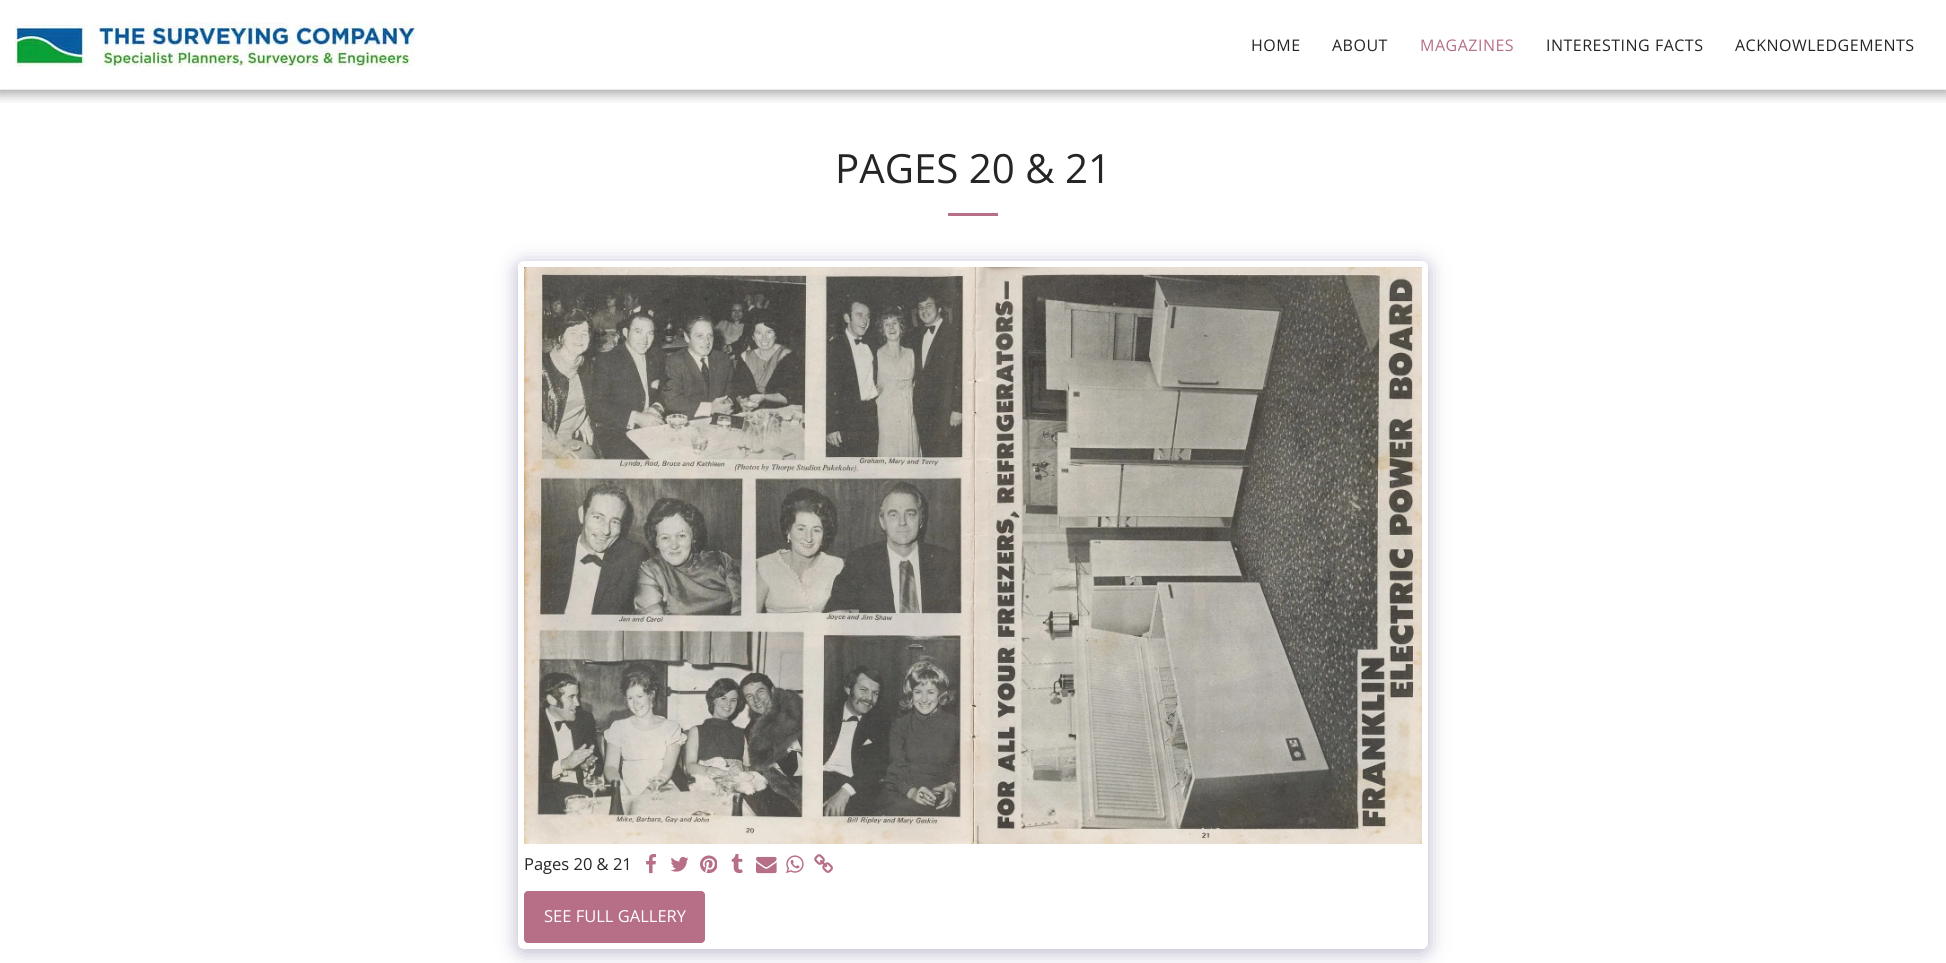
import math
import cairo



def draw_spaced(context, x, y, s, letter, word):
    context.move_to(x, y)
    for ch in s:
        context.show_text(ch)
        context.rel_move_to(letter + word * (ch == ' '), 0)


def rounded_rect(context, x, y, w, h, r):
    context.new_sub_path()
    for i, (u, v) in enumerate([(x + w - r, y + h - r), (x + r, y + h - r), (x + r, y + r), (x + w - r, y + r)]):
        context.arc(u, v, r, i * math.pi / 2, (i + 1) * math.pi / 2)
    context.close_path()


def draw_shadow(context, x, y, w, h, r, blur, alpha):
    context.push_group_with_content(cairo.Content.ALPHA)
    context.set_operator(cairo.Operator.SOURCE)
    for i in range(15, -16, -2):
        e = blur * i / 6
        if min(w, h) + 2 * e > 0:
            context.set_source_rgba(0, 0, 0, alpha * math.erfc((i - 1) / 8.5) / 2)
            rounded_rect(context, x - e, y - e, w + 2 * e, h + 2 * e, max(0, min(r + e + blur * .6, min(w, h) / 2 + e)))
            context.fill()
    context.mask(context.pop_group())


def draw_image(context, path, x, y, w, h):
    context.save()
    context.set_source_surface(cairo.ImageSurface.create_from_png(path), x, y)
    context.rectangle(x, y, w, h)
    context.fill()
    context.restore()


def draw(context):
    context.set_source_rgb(1, 1, 1)
    context.paint()
    context.save()
    context.rectangle(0, 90, 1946, 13)
    context.clip()
    context.set_source_rgb(0, 0, 0)
    draw_shadow(context, -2, 0, 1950, 94, 0, 6, 0.35)
    context.restore()
    context.set_source_rgb(235 / 255, 235 / 255, 235 / 255)
    context.rectangle(0, 89, 1946, 1)
    context.fill()
    draw_image(context, "images/1.png", 15, 22, 400, 45)
    context.set_source_rgb(182 / 255, 111 / 255, 134 / 255)
    context.rectangle(948, 213, 50, 3)
    context.fill()
    context.set_source_rgb(77 / 255, 63 / 255, 122 / 255)
    draw_shadow(context, 518, 264, 910, 688, 6, 10, 0.4)
    context.set_source_rgb(1, 1, 1)
    rounded_rect(context, 518, 261, 910, 688, 6)
    context.fill()
    draw_image(context, "images/2.png", 524, 267, 898, 577)
    draw_image(context, "images/3.png", 646, 854, 11, 20)
    draw_image(context, "images/4.png", 670, 857, 19, 15)
    draw_image(context, "images/5.png", 700, 855, 17, 19)
    draw_image(context, "images/6.png", 731, 854, 12, 20)
    draw_image(context, "images/7.png", 756, 856, 21, 18)
    draw_image(context, "images/8.png", 786, 855, 18, 19)
    draw_image(context, "images/9.png", 814, 854, 19, 19)
    context.set_source_rgb(182 / 255, 111 / 255, 134 / 255)
    rounded_rect(context, 524.5, 891.5, 180, 51, 3.5)
    context.fill_preserve()
    context.set_line_width(1)
    context.stroke()
    context.select_font_face("Open Sans")
    context.set_font_size(16)
    context.set_source_rgb(37 / 255, 37 / 255, 37 / 255)
    draw_spaced(context, 1251, 51, "HOME", 0.5, 0)
    draw_spaced(context, 1332, 51, "ABOUT", 0.5, 0)
    context.set_source_rgb(182 / 255, 111 / 255, 134 / 255)
    draw_spaced(context, 1420, 51, "MAGAZINES", 0.5, 0)
    context.set_source_rgb(37 / 255, 37 / 255, 37 / 255)
    draw_spaced(context, 1546, 51, "INTERESTING FACTS", 0.5, 0)
    draw_spaced(context, 1735, 51, "ACKNOWLEDGEMENTS", 0.5, 0)
    context.set_font_size(40.25)
    context.move_to(835, 183)
    context.show_text("PAGES 20 & 21")
    context.set_font_size(16.5)
    context.move_to(524, 870)
    context.show_text("Pages 20 & 21")
    context.set_source_rgb(1, 1, 1)
    context.move_to(544, 922)
    context.show_text("SEE FULL GALLERY")


surface = cairo.ImageSurface(cairo.Format.RGB24, 1946, 963)
context = cairo.Context(surface)
options = cairo.FontOptions()
options.set_hint_metrics(cairo.HintMetrics.OFF)
options.set_hint_style(cairo.HintStyle.NONE)
context.set_font_options(options)
context.set_miter_limit(4)
draw(context)
surface.write_to_png("out.png")
